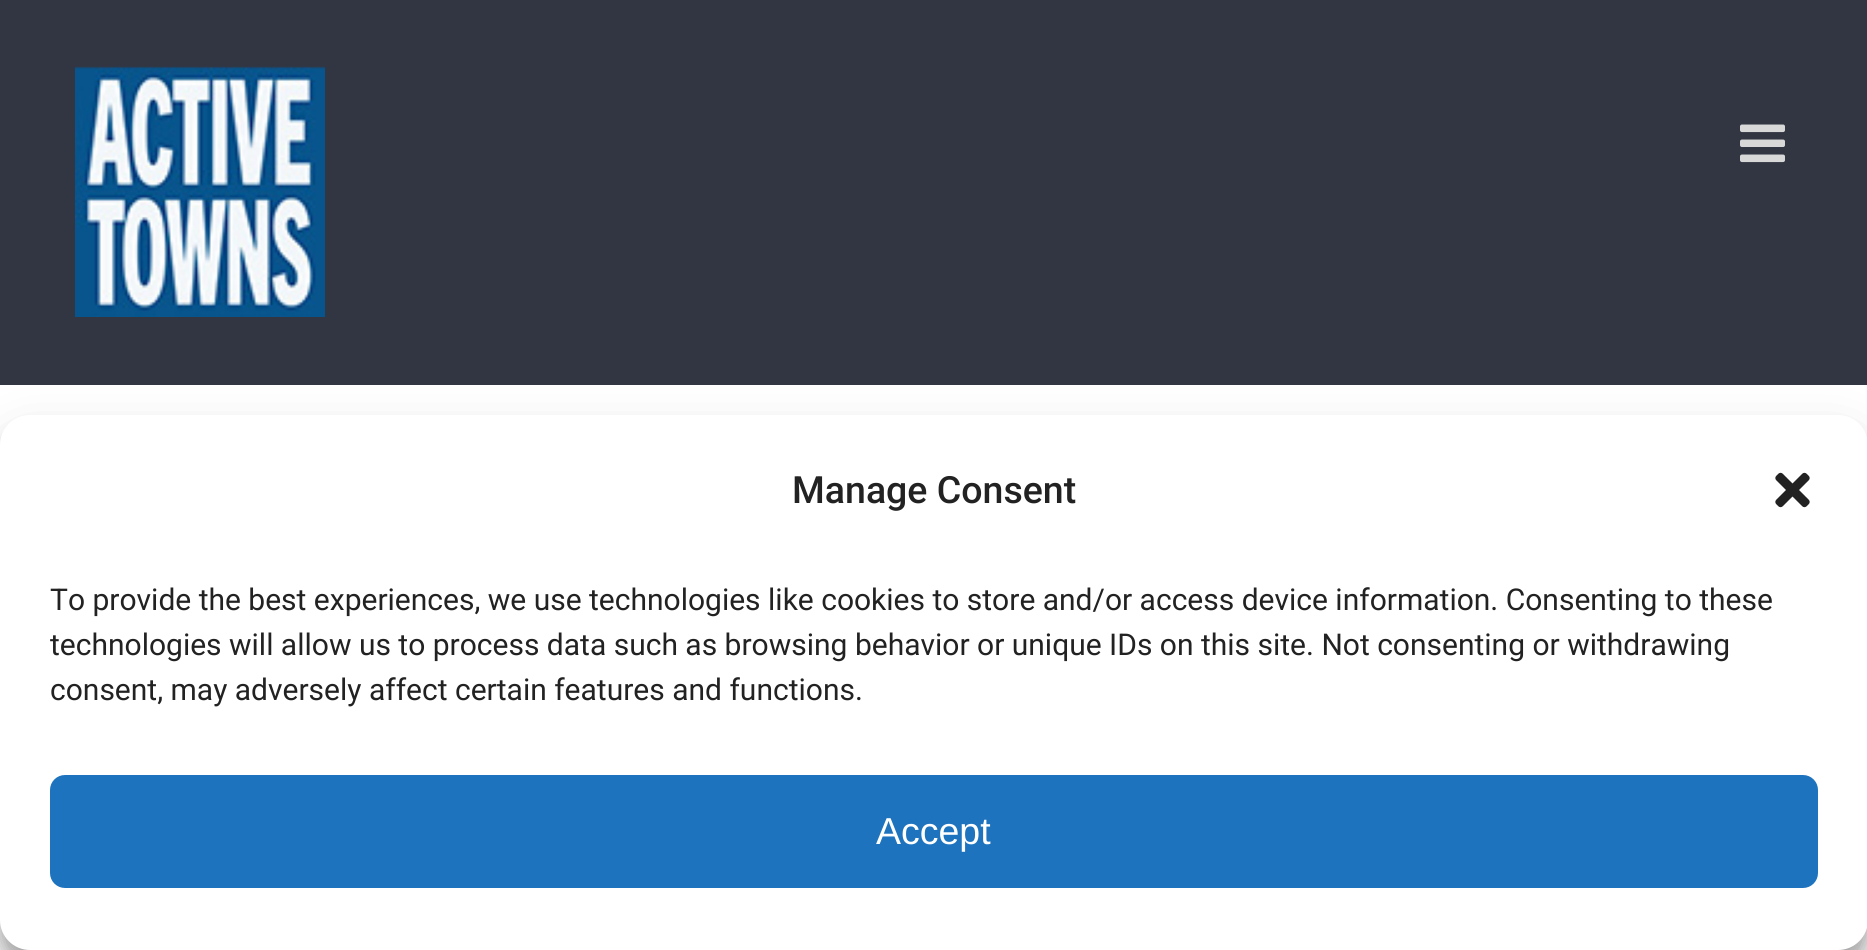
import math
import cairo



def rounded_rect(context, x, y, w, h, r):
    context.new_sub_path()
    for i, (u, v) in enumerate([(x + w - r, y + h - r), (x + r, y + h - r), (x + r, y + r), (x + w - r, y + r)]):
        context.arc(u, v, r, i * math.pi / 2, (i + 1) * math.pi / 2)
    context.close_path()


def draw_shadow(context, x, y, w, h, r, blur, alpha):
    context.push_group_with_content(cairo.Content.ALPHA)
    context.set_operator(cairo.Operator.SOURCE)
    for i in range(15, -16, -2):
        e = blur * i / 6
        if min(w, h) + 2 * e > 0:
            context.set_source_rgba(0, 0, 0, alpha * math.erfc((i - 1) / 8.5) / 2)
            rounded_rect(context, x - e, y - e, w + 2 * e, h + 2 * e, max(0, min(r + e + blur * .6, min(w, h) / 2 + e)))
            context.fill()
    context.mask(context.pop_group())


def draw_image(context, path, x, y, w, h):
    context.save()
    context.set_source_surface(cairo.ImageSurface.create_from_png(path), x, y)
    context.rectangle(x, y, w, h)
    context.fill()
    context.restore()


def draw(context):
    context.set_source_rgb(1, 1, 1)
    context.paint()
    context.set_source_rgb(50 / 255, 54 / 255, 67 / 255)
    context.rectangle(0, 0, 1867, 385)
    context.fill()
    draw_image(context, "images/1.png", 75, 66, 250, 251)
    draw_image(context, "images/2.png", 1740, 124, 45, 39)
    context.set_source_rgb(0, 0, 0)
    draw_shadow(context, 0, 430, 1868, 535, 30, 7.5, 0.23)
    draw_shadow(context, 0, 440, 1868, 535, 30, 25, 0.19)
    context.set_source_rgb(1, 1, 1)
    rounded_rect(context, 0, 415, 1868, 535, 30)
    context.fill()
    draw_image(context, "images/3.png", 1775, 472, 35, 36)
    context.set_source_rgb(30 / 255, 115 / 255, 190 / 255)
    rounded_rect(context, 51.5, 776.5, 1765, 110, 13.5)
    context.fill_preserve()
    context.set_line_width(3)
    context.stroke()
    context.select_font_face("Roboto Medium")
    context.set_font_size(37.5)
    context.set_source_rgb(34 / 255, 34 / 255, 34 / 255)
    context.move_to(792, 503)
    context.show_text("Manage Consent")
    context.select_font_face("Roboto")
    context.set_font_size(30)
    context.move_to(50, 610)
    context.show_text("To provide the best experiences, we use technologies like cookies to store and/or access device information. Consenting to these")
    context.move_to(50, 655)
    context.show_text("technologies will allow us to process data such as browsing behavior or unique IDs on this site. Not consenting or withdrawing")
    context.move_to(50, 700)
    context.show_text("consent, may adversely affect certain features and functions.")
    context.select_font_face("Liberation Sans")
    context.set_font_size(37.5)
    context.set_source_rgb(1, 1, 1)
    context.move_to(876, 844)
    context.show_text("Accept")


surface = cairo.ImageSurface(cairo.Format.RGB24, 1867, 950)
context = cairo.Context(surface)
options = cairo.FontOptions()
options.set_hint_metrics(cairo.HintMetrics.OFF)
options.set_hint_style(cairo.HintStyle.NONE)
context.set_font_options(options)
context.set_miter_limit(4)
draw(context)
surface.write_to_png("out.png")
